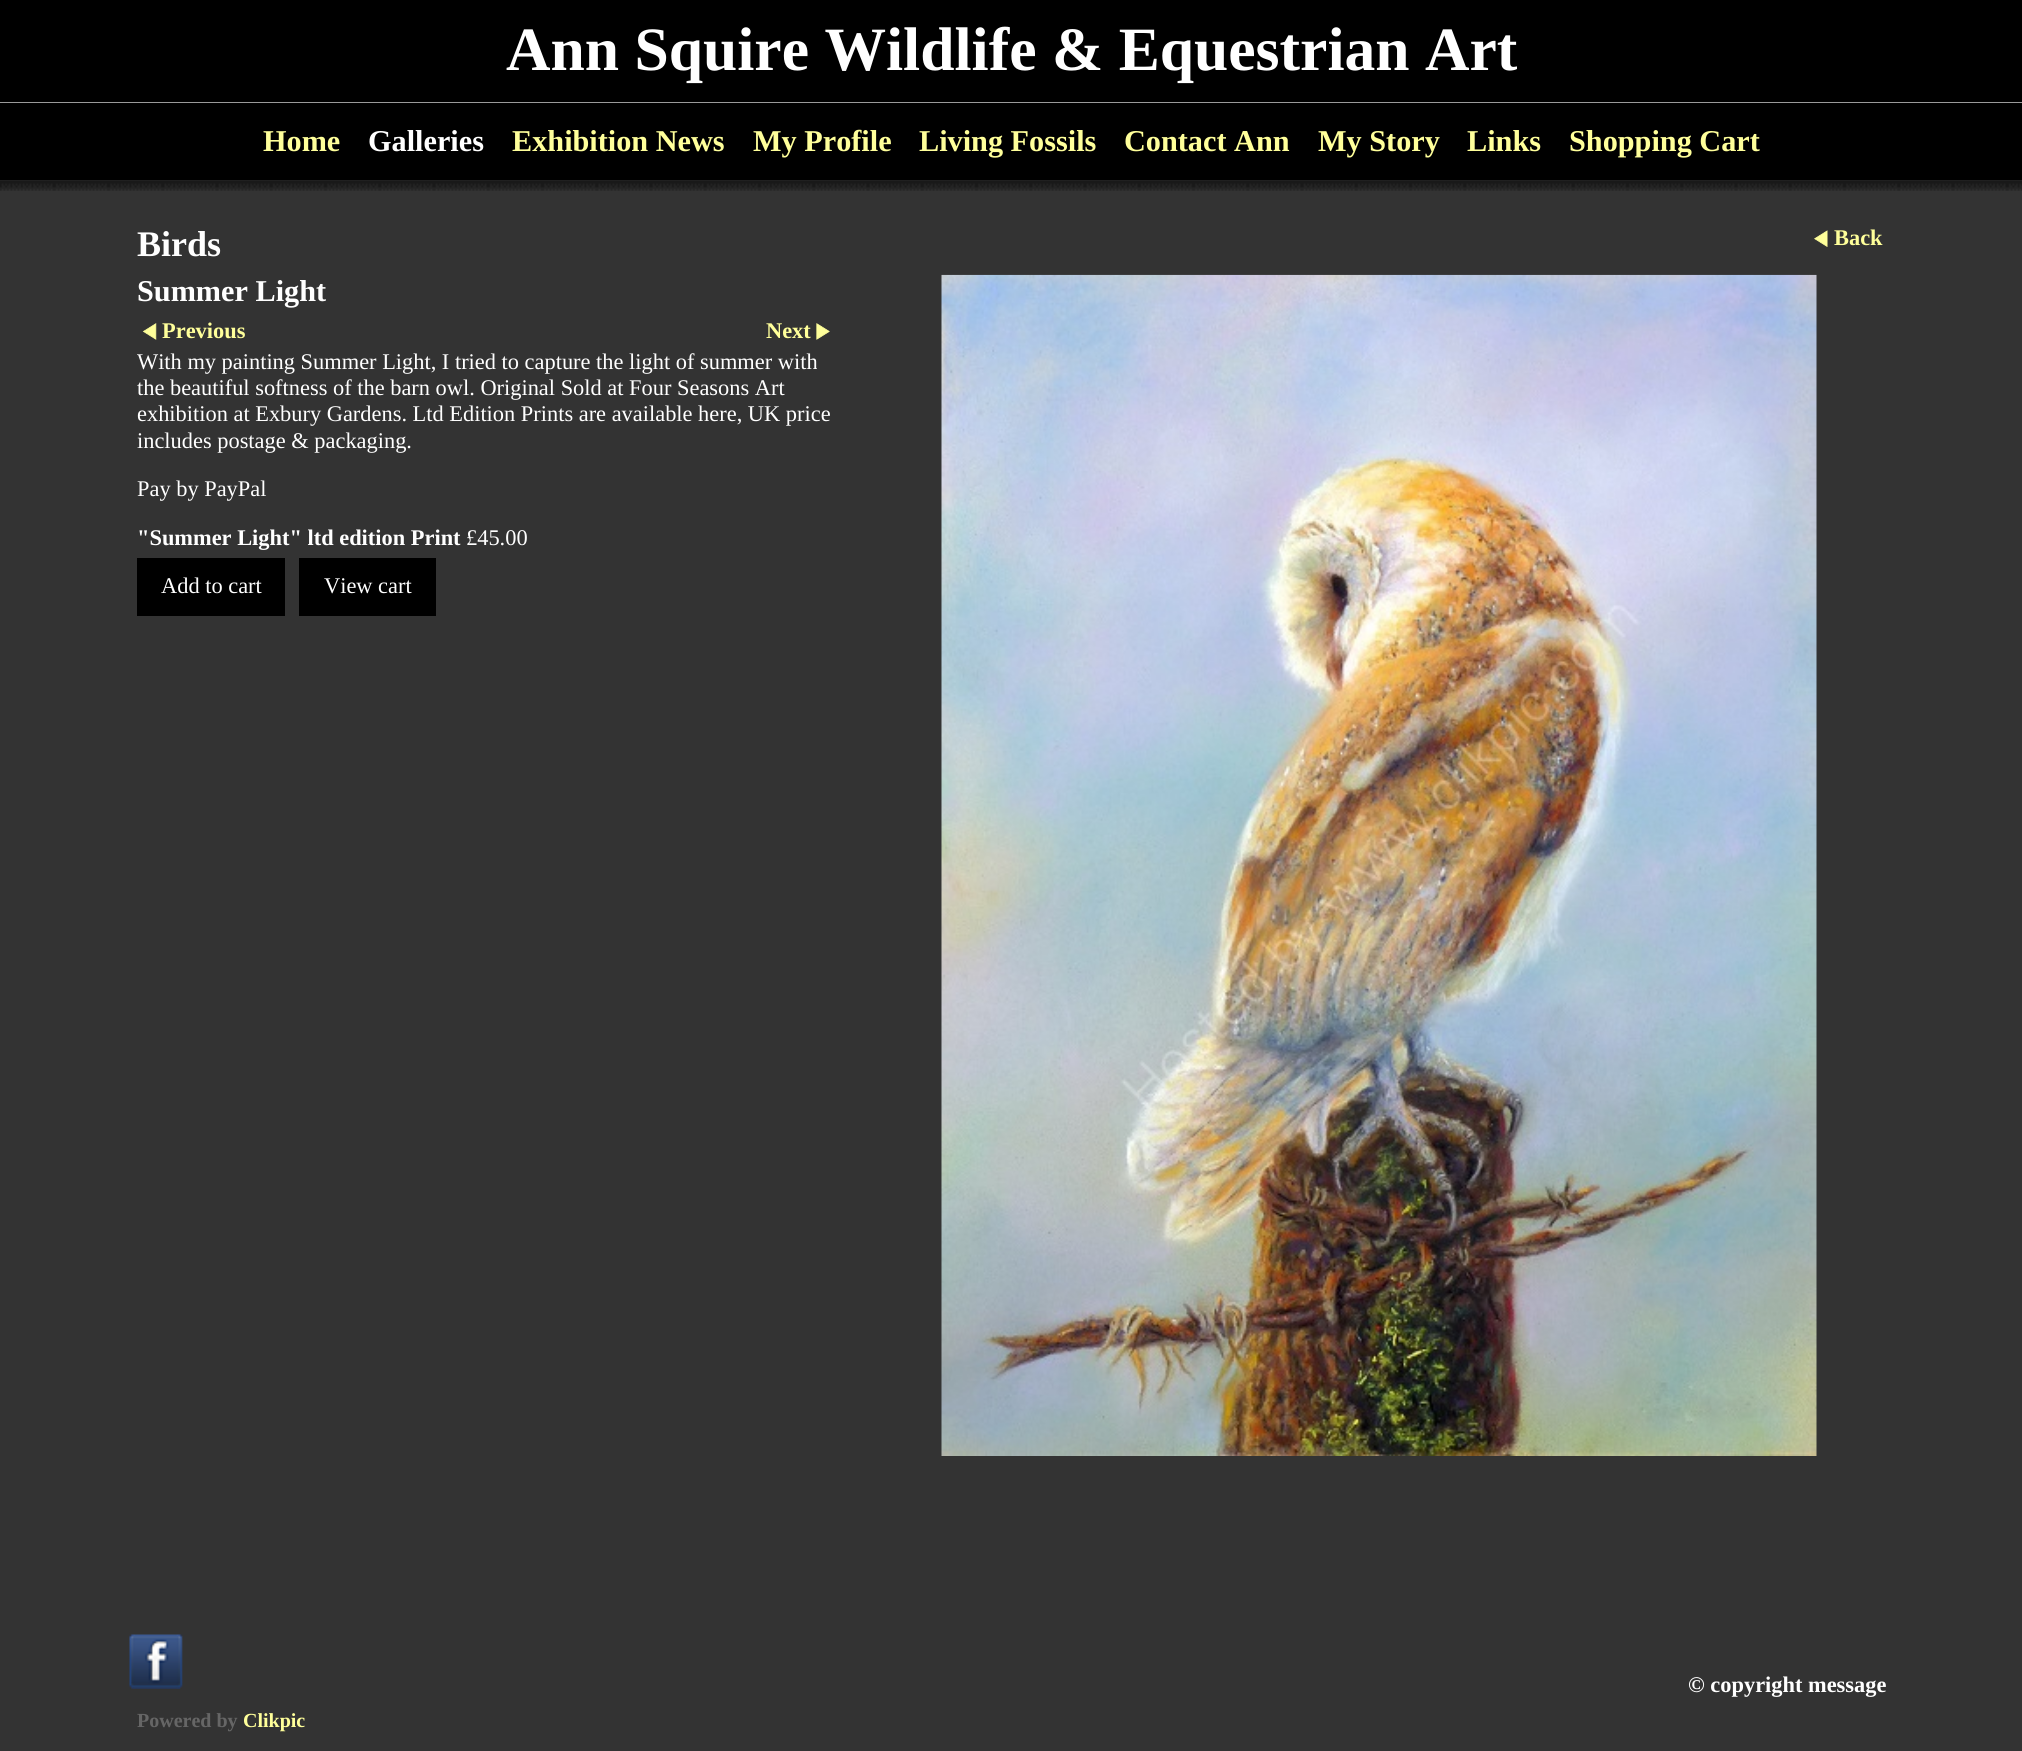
import math
import cairo



def draw_image(context, path, x, y, w, h):
    context.save()
    context.set_source_surface(cairo.ImageSurface.create_from_png(path), x, y)
    context.rectangle(x, y, w, h)
    context.fill()
    context.restore()


def draw(context):
    context.set_source_rgb(51 / 255, 51 / 255, 51 / 255)
    context.paint()
    context.set_source_rgb(0, 0, 0)
    context.rectangle(0, 0, 2022, 102)
    context.fill()
    context.set_source_rgb(154 / 255, 154 / 255, 154 / 255)
    context.rectangle(0, 102, 2022, 1)
    context.fill()
    context.set_source_rgb(0, 0, 0)
    context.rectangle(0, 103, 2022, 77)
    context.fill()
    draw_image(context, "images/1.png", 0, 180, 2022, 11)
    draw_image(context, "images/2.png", 1814, 230, 14, 17)
    draw_image(context, "images/3.png", 142, 323, 15, 17)
    draw_image(context, "images/4.png", 816, 323, 14, 17)
    context.rectangle(137, 558, 148, 58)
    context.fill()
    context.rectangle(299, 558, 137, 58)
    context.fill()
    draw_image(context, "images/5.png", 941, 274, 876, 1182)
    draw_image(context, "images/6.png", 129, 1634, 54, 55)
    context.select_font_face("Liberation Serif", cairo.FontSlant.NORMAL, cairo.FontWeight.BOLD)
    context.set_font_size(61.6)
    context.set_source_rgb(1, 1, 1)
    context.move_to(506, 70)
    context.show_text("Ann Squire Wildlife & Equestrian Art")
    context.set_font_size(30.25)
    context.set_source_rgb(1, 1, 154 / 255)
    context.move_to(263, 151)
    context.show_text("Home")
    context.set_source_rgb(1, 1, 1)
    context.move_to(368, 151)
    context.show_text("Galleries")
    context.set_source_rgb(1, 1, 154 / 255)
    context.move_to(512, 151)
    context.show_text("Exhibition News")
    context.move_to(753, 151)
    context.show_text("My Profile")
    context.move_to(919, 151)
    context.show_text("Living Fossils")
    context.move_to(1124, 151)
    context.show_text("Contact Ann")
    context.move_to(1318, 151)
    context.show_text("My Story")
    context.move_to(1467, 151)
    context.show_text("Links")
    context.move_to(1569, 151)
    context.show_text("Shopping Cart")
    context.set_font_size(36)
    context.set_source_rgb(1, 1, 1)
    context.move_to(137, 256)
    context.show_text("Birds")
    context.set_font_size(22.4)
    context.set_source_rgb(1, 1, 154 / 255)
    context.move_to(1834, 245)
    context.show_text("Back")
    context.set_font_size(30.25)
    context.set_source_rgb(1, 1, 1)
    context.move_to(137, 301)
    context.show_text("Summer Light")
    context.set_font_size(22.4)
    context.set_source_rgb(1, 1, 154 / 255)
    context.move_to(162, 338)
    context.show_text("Previous")
    context.move_to(766, 338)
    context.show_text("Next")
    context.select_font_face("Liberation Serif")
    context.set_source_rgb(1, 1, 1)
    context.move_to(137, 369)
    context.show_text("With my painting Summer Light, I tried to capture the light of summer with")
    context.move_to(137, 395)
    context.show_text("the beautiful softness of the barn owl. Original Sold at Four Seasons Art")
    context.move_to(137, 421)
    context.show_text("exhibition at Exbury Gardens. Ltd Edition Prints are available here, UK price")
    context.move_to(137, 448)
    context.show_text("includes postage & packaging.")
    context.move_to(137, 496)
    context.show_text("Pay by PayPal")
    context.select_font_face("Liberation Serif", cairo.FontSlant.NORMAL, cairo.FontWeight.BOLD)
    context.move_to(137, 545)
    context.show_text("\"Summer Light\" ltd edition Print")
    context.select_font_face("Liberation Serif")
    context.move_to(466, 545)
    context.show_text("£45.00")
    context.move_to(161, 593)
    context.show_text("Add to cart")
    context.move_to(324, 593)
    context.show_text("View cart")
    context.select_font_face("Liberation Serif", cairo.FontSlant.NORMAL, cairo.FontWeight.BOLD)
    context.move_to(1688, 1692)
    context.show_text("© copyright message")
    context.set_font_size(20)
    context.set_source_rgb(102 / 255, 102 / 255, 102 / 255)
    context.move_to(137, 1727)
    context.show_text("Powered by")
    context.set_source_rgb(1, 1, 154 / 255)
    context.move_to(243, 1727)
    context.show_text("Clikpic")


surface = cairo.ImageSurface(cairo.Format.RGB24, 2022, 1751)
context = cairo.Context(surface)
options = cairo.FontOptions()
options.set_hint_metrics(cairo.HintMetrics.OFF)
options.set_hint_style(cairo.HintStyle.NONE)
context.set_font_options(options)
context.set_miter_limit(4)
draw(context)
surface.write_to_png("out.png")
